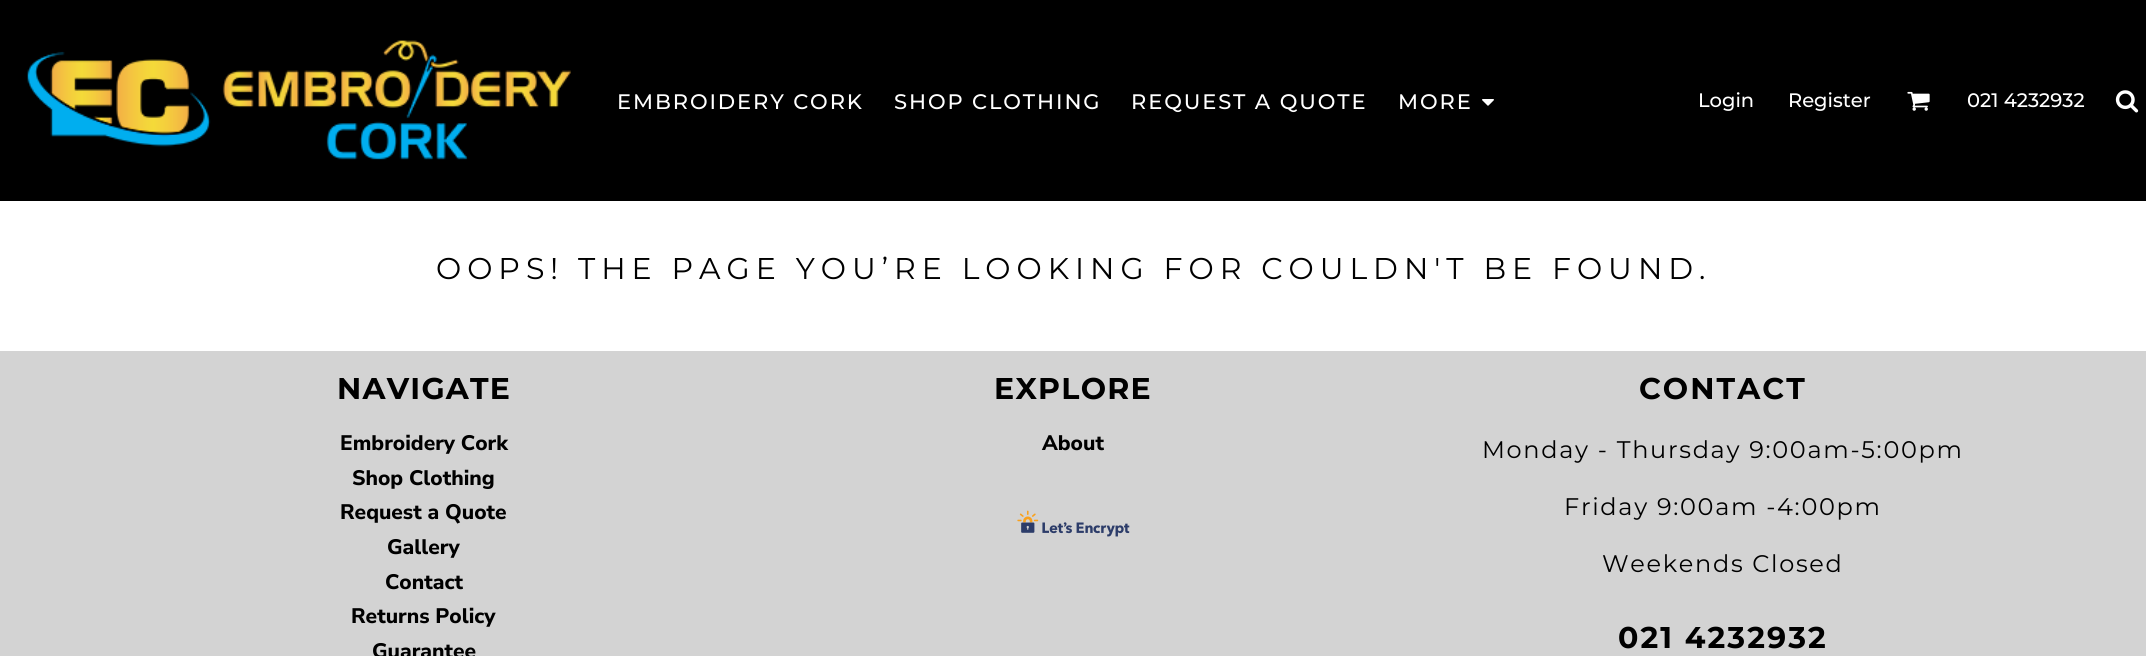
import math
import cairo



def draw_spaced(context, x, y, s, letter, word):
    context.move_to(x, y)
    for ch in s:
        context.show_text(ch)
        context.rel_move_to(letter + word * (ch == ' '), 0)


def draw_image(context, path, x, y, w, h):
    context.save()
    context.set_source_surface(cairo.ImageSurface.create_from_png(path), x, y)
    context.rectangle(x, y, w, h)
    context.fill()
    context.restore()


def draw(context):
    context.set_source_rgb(1, 1, 1)
    context.paint()
    context.set_source_rgb(0, 0, 0)
    context.rectangle(0, 0, 2146, 201)
    context.fill()
    draw_image(context, "images/1.png", 27, 40, 544, 120)
    draw_image(context, "images/2.png", 1482, 99, 12, 7)
    draw_image(context, "images/3.png", 1907, 91, 23, 20)
    draw_image(context, "images/4.png", 2115, 90, 24, 23)
    context.set_source_rgb(211 / 255, 211 / 255, 211 / 255)
    context.rectangle(0, 351, 2146, 305)
    context.fill()
    draw_image(context, "images/5.png", 1017, 510, 113, 27)
    context.select_font_face("Montserrat Medium")
    context.set_font_size(21)
    context.set_source_rgb(1, 1, 1)
    draw_spaced(context, 617, 109, "EMBROIDERY CORK", 1.9, 0)
    draw_spaced(context, 894, 109, "SHOP CLOTHING", 1.9, 0)
    draw_spaced(context, 1131, 109, "REQUEST A QUOTE", 1.9, 0)
    draw_spaced(context, 1398, 109, "MORE", 1.9, 0)
    context.set_font_size(19.5)
    context.move_to(1698, 107)
    context.show_text("Login")
    context.move_to(1788, 107)
    context.show_text("Register")
    context.move_to(1967, 107)
    context.show_text("021 4232932")
    context.select_font_face("Montserrat")
    context.set_font_size(30)
    context.set_source_rgb(0, 0, 0)
    draw_spaced(context, 436, 279, "OOPS! THE PAGE YOU’RE LOOKING FOR COULDN'T BE FOUND.", 6, 0)
    context.select_font_face("Montserrat", cairo.FontSlant.NORMAL, cairo.FontWeight.BOLD)
    draw_spaced(context, 337, 399, "NAVIGATE", 1.25, 0)
    context.select_font_face("Nunito Sans ExtraBold")
    context.set_font_size(21)
    context.move_to(340, 450)
    context.show_text("Embroidery Cork")
    context.move_to(352, 485)
    context.show_text("Shop Clothing")
    context.move_to(340, 519)
    context.show_text("Request a Quote")
    context.move_to(387, 554)
    context.show_text("Gallery")
    context.move_to(385, 589)
    context.show_text("Contact")
    context.move_to(351, 623)
    context.show_text("Returns Policy")
    context.move_to(372, 658)
    context.show_text("Guarantee")
    context.select_font_face("Montserrat", cairo.FontSlant.NORMAL, cairo.FontWeight.BOLD)
    context.set_font_size(30)
    draw_spaced(context, 994, 399, "EXPLORE", 1.25, 0)
    context.select_font_face("Nunito Sans ExtraBold")
    context.set_font_size(21)
    context.move_to(1042, 450)
    context.show_text("About")
    context.select_font_face("Montserrat", cairo.FontSlant.NORMAL, cairo.FontWeight.BOLD)
    context.set_font_size(30)
    draw_spaced(context, 1639, 399, "CONTACT", 2.1, 0)
    context.select_font_face("Montserrat")
    context.set_font_size(24)
    draw_spaced(context, 1482, 458, "Monday - Thursday 9:00am-5:00pm", 1.7, 0)
    draw_spaced(context, 1564, 515, "Friday 9:00am -4:00pm", 1.7, 0)
    draw_spaced(context, 1602, 572, "Weekends Closed", 1.7, 0)
    context.select_font_face("Montserrat", cairo.FontSlant.NORMAL, cairo.FontWeight.BOLD)
    context.set_font_size(30)
    draw_spaced(context, 1618, 648, "021 4232932", 2.1, 0)


surface = cairo.ImageSurface(cairo.Format.RGB24, 2146, 656)
context = cairo.Context(surface)
options = cairo.FontOptions()
options.set_hint_metrics(cairo.HintMetrics.OFF)
options.set_hint_style(cairo.HintStyle.NONE)
context.set_font_options(options)
context.set_miter_limit(4)
draw(context)
surface.write_to_png("out.png")
